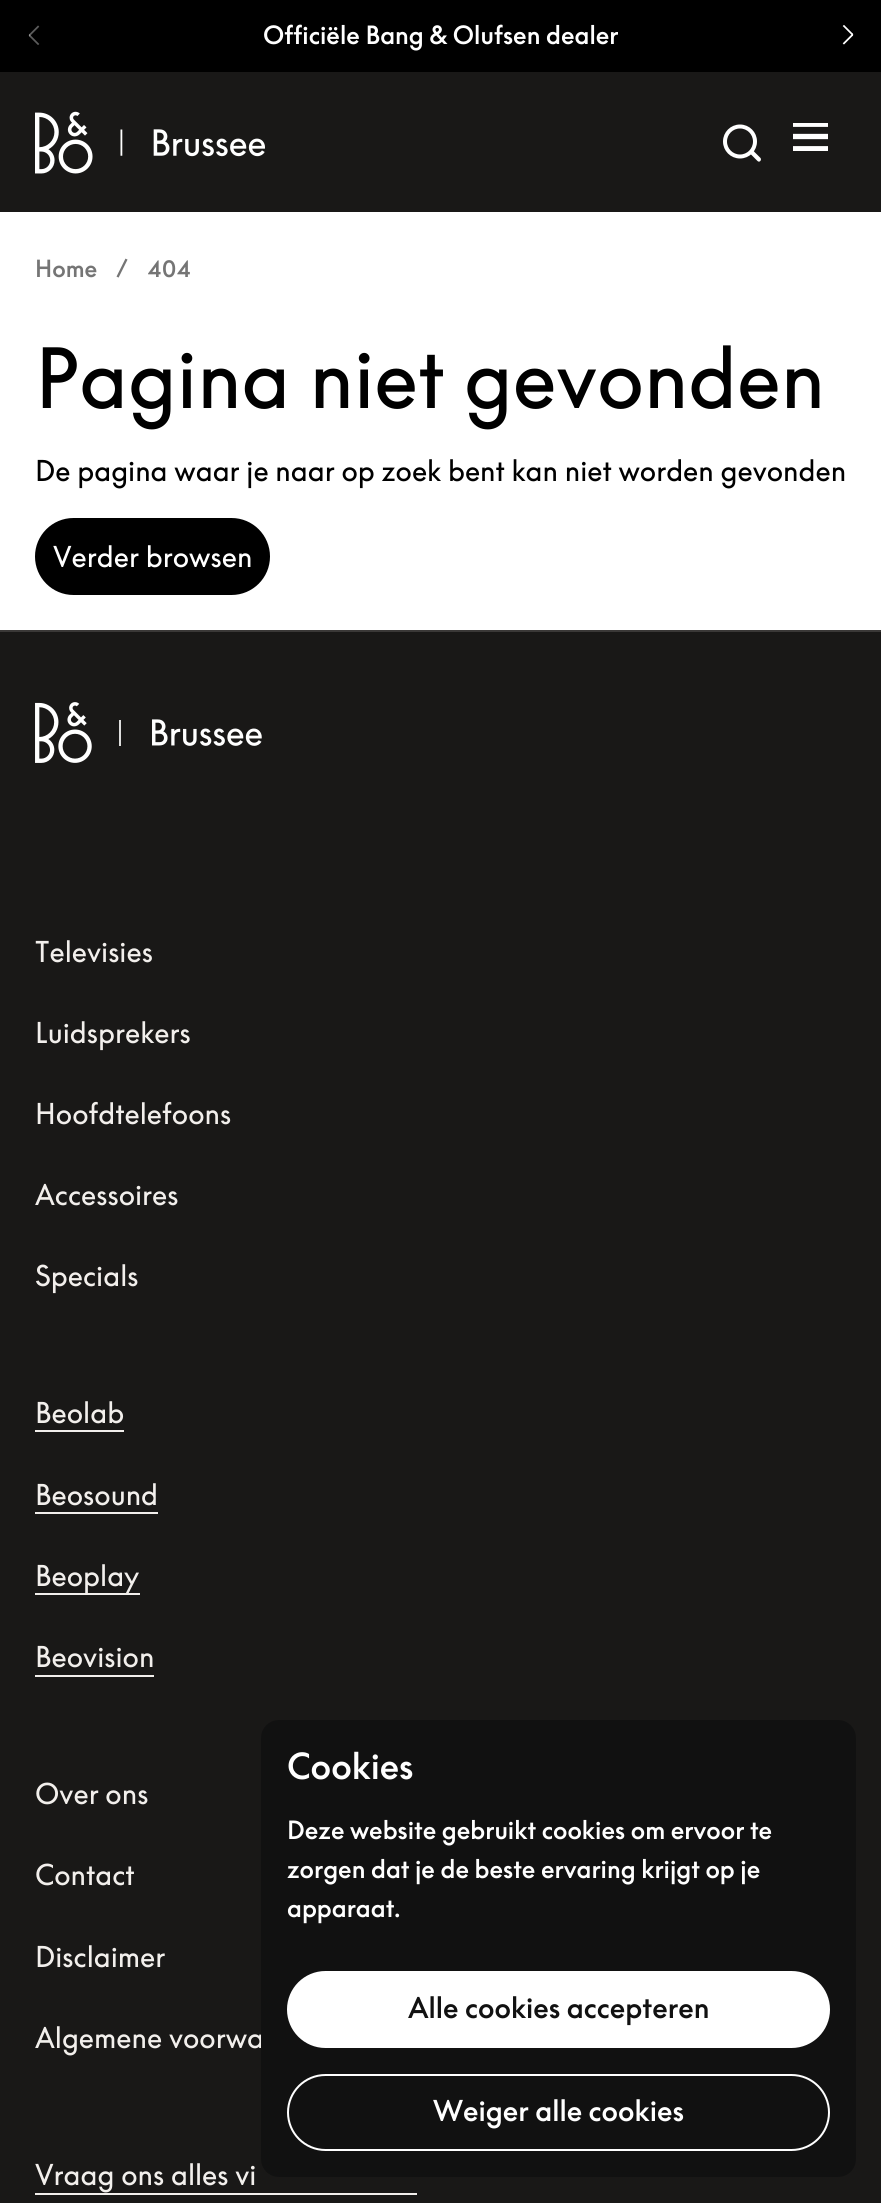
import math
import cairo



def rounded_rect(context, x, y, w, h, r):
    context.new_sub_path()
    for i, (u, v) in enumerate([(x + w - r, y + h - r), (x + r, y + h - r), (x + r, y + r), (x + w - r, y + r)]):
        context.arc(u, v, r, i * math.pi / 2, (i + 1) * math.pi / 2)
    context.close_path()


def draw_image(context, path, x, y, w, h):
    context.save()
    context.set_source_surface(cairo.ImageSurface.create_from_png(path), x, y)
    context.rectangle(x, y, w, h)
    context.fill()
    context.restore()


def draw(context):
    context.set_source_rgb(1, 1, 1)
    context.paint()
    context.set_source_rgb(0, 0, 0)
    context.rectangle(0, 0, 881, 72)
    context.fill()
    draw_image(context, "images/1.png", 28, 25, 12, 20)
    draw_image(context, "images/2.png", 842, 25, 12, 20)
    context.set_source_rgb(25 / 255, 24 / 255, 23 / 255)
    context.rectangle(0, 72, 881, 140)
    context.fill()
    draw_image(context, "images/3.png", 35, 111, 230, 63)
    context.arc(740, 141.5, 15, 0, 2 * math.pi)
    context.set_source_rgb(1, 1, 1)
    context.set_line_width(4)
    context.stroke()
    context.new_path()
    context.move_to(753.5, 151)
    context.line_to(752, 150)
    context.line_to(749, 152.5)
    context.line_to(750.5, 154)
    context.close_path()
    context.move_to(757.5, 161)
    context.curve_to(759.5, 163, 762, 160, 760.5, 158)
    context.close_path()
    context.move_to(750.5, 154)
    context.line_to(757.5, 161)
    context.line_to(760.5, 158)
    context.line_to(753.5, 151)
    context.close_path()
    context.fill()
    draw_image(context, "images/4.png", 793, 123, 35, 28)
    context.set_source_rgb(0, 0, 0)
    rounded_rect(context, 36, 519, 233, 75, 37.5)
    context.fill_preserve()
    context.set_line_width(2)
    context.stroke()
    context.set_source_rgb(25 / 255, 24 / 255, 23 / 255)
    context.rectangle(0, 632, 881, 1571)
    context.fill()
    context.set_source_rgb(58 / 255, 56 / 255, 55 / 255)
    context.rectangle(0, 630, 881, 2)
    context.fill()
    draw_image(context, "images/5.png", 35, 702, 227, 61)
    context.set_source_rgb(242 / 255, 239 / 255, 236 / 255)
    context.rectangle(35, 1430, 89, 2)
    context.fill()
    context.rectangle(35, 1512, 123, 2)
    context.fill()
    context.rectangle(35, 1593, 105, 2)
    context.fill()
    context.rectangle(35, 1675, 119, 2)
    context.fill()
    context.rectangle(35, 2193, 382, 2)
    context.fill()
    context.select_font_face("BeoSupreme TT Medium")
    context.set_font_size(24.5)
    context.set_source_rgb(1, 1, 1)
    context.move_to(263, 44)
    context.show_text("Officiële Bang & Olufsen dealer")
    context.set_font_size(23)
    context.set_source_rgb(117 / 255, 117 / 255, 117 / 255)
    context.move_to(35, 277)
    context.show_text("Home")
    context.move_to(116, 277)
    context.show_text("/")
    context.move_to(147, 277)
    context.show_text("404")
    context.select_font_face("BeoSupreme TT")
    context.set_font_size(80.5)
    context.set_source_rgb(0, 0, 0)
    context.move_to(35, 408)
    context.show_text("Pagina niet gevonden")
    context.set_font_size(28)
    context.move_to(35, 481)
    context.show_text("De pagina waar je naar op zoek bent kan niet worden gevonden")
    context.set_source_rgb(1, 1, 1)
    context.move_to(53, 567)
    context.show_text("Verder browsen")
    context.set_source_rgb(242 / 255, 239 / 255, 236 / 255)
    context.move_to(35, 962)
    context.show_text("Televisies")
    context.move_to(35, 1043)
    context.show_text("Luidsprekers")
    context.move_to(35, 1124)
    context.show_text("Hoofdtelefoons")
    context.move_to(35, 1205)
    context.show_text("Accessoires")
    context.move_to(35, 1286)
    context.show_text("Specials")
    context.move_to(35, 1423)
    context.show_text("Beolab")
    context.move_to(35, 1505)
    context.show_text("Beosound")
    context.move_to(35, 1586)
    context.show_text("Beoplay")
    context.move_to(35, 1667)
    context.show_text("Beovision")
    context.move_to(35, 1804)
    context.show_text("Over ons")
    context.move_to(35, 1885)
    context.show_text("Contact")
    context.move_to(35, 1967)
    context.show_text("Disclaimer")
    context.move_to(35, 2048)
    context.show_text("Algemene voorwa")
    context.move_to(35, 2185)
    context.show_text("Vraag ons alles vi")
    context.set_source_rgb(17 / 255, 17 / 255, 17 / 255)
    rounded_rect(context, 261, 1720, 595, 457, 18)
    context.fill()
    context.select_font_face("BeoSupreme TT Medium")
    context.set_font_size(35)
    context.set_source_rgb(1, 1, 1)
    context.move_to(287, 1779)
    context.show_text("Cookies")
    context.set_font_size(24.5)
    context.move_to(287, 1839)
    context.show_text("Deze website gebruikt cookies om ervoor te")
    context.move_to(287, 1878)
    context.show_text("zorgen dat je de beste ervaring krijgt op je")
    context.move_to(287, 1917)
    context.show_text("apparaat.")
    rounded_rect(context, 288, 1972, 541, 75, 37.5)
    context.fill_preserve()
    context.stroke()
    context.set_font_size(28)
    context.set_source_rgb(17 / 255, 17 / 255, 17 / 255)
    context.move_to(408, 2018)
    context.show_text("Alle cookies accepteren")
    rounded_rect(context, 288, 2075, 541, 75, 37.5)
    context.set_source_rgb(1, 1, 1)
    context.stroke()
    context.move_to(433, 2121)
    context.show_text("Weiger alle cookies")


surface = cairo.ImageSurface(cairo.Format.RGB24, 881, 2203)
context = cairo.Context(surface)
options = cairo.FontOptions()
options.set_hint_metrics(cairo.HintMetrics.OFF)
options.set_hint_style(cairo.HintStyle.NONE)
context.set_font_options(options)
context.set_miter_limit(4)
draw(context)
surface.write_to_png("out.png")
